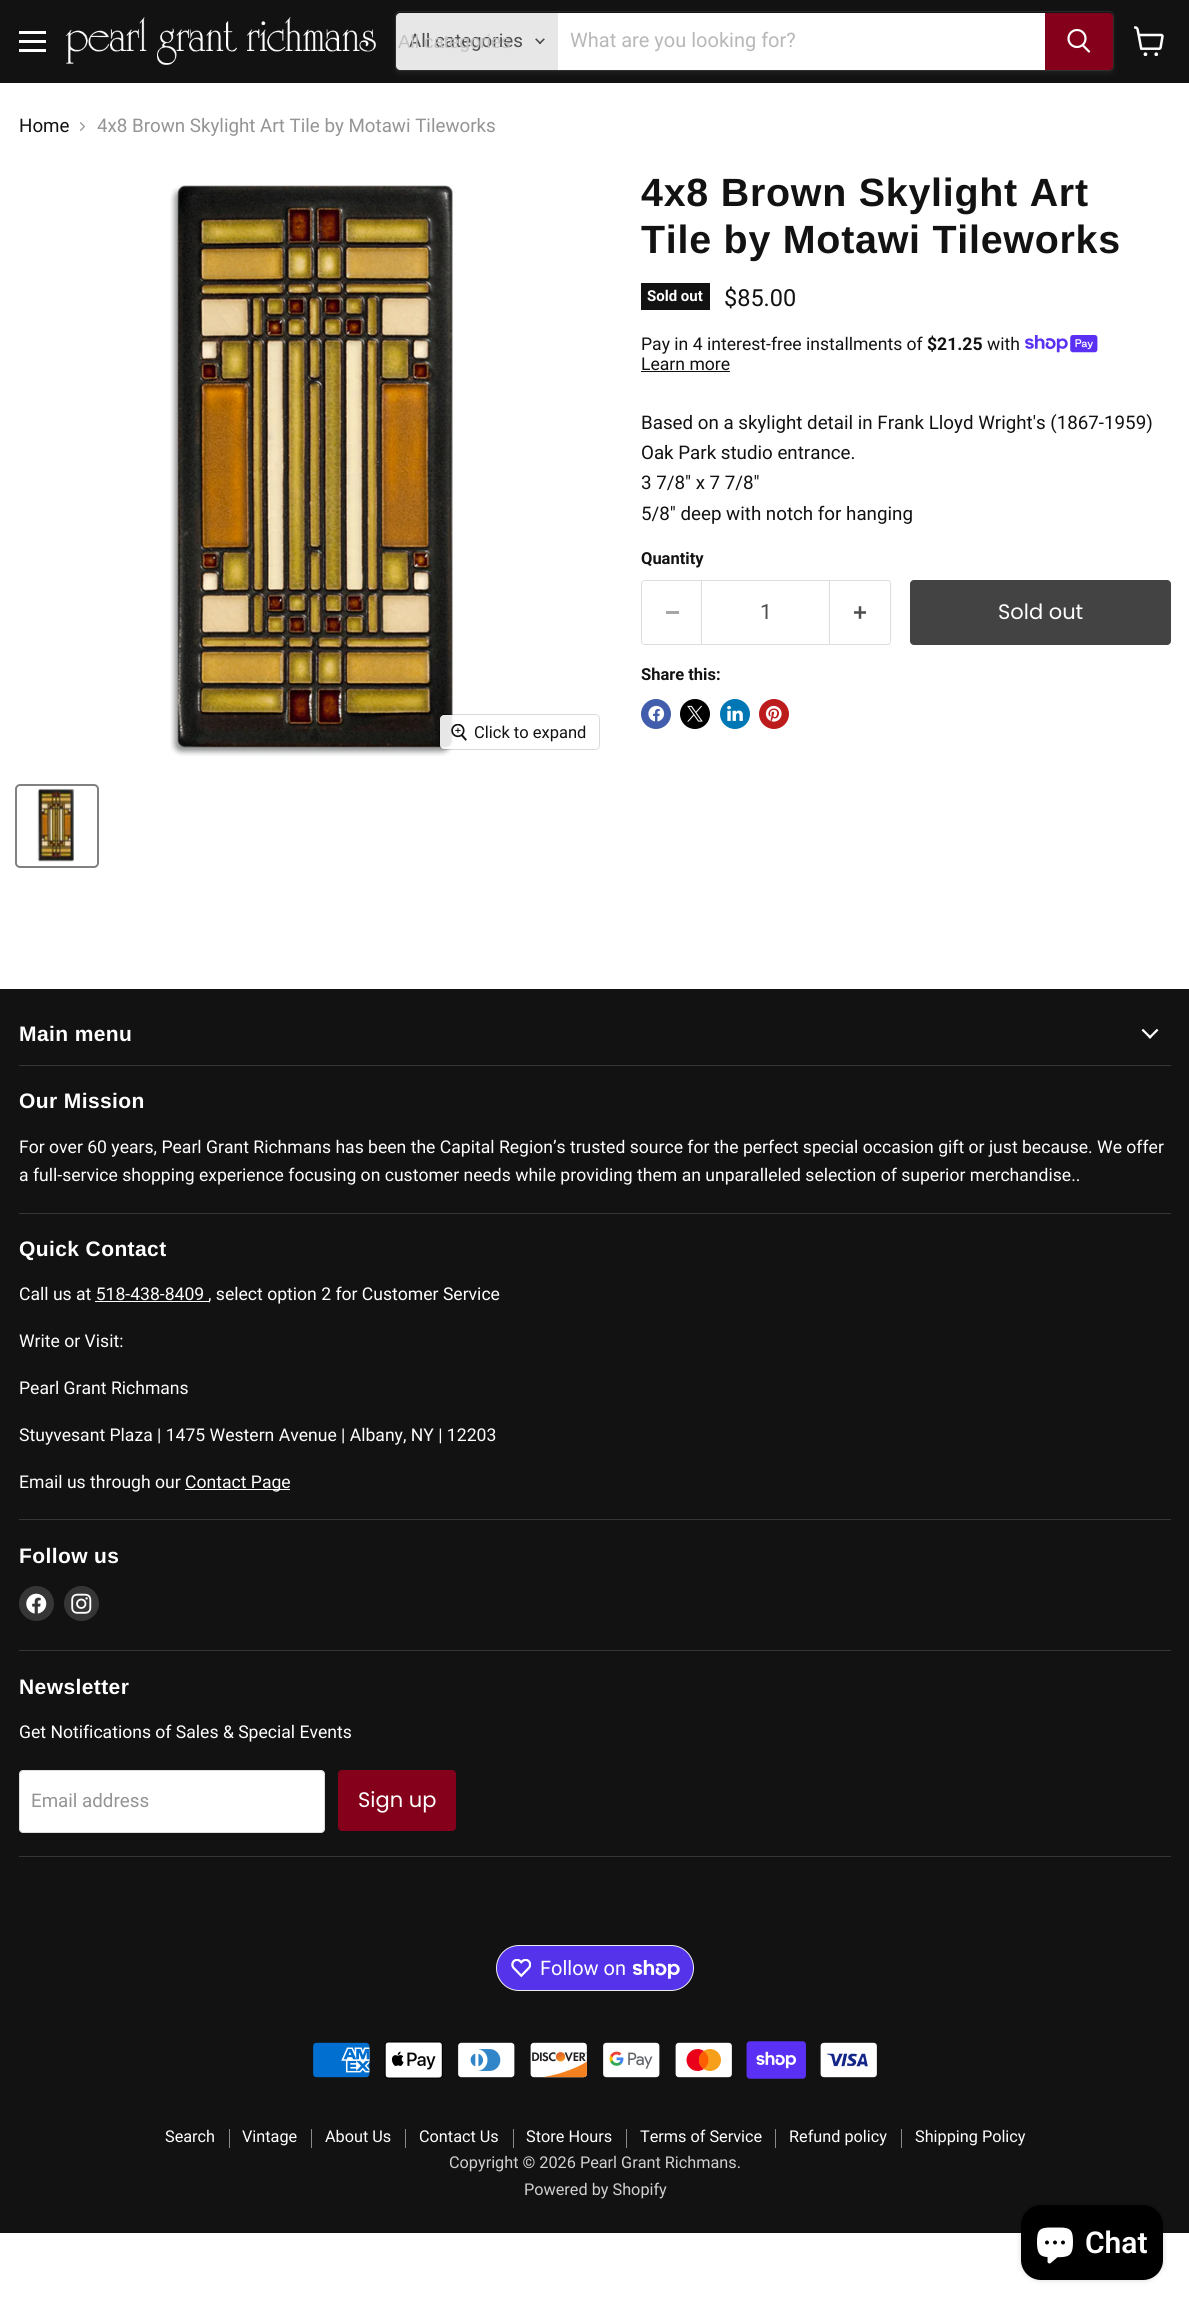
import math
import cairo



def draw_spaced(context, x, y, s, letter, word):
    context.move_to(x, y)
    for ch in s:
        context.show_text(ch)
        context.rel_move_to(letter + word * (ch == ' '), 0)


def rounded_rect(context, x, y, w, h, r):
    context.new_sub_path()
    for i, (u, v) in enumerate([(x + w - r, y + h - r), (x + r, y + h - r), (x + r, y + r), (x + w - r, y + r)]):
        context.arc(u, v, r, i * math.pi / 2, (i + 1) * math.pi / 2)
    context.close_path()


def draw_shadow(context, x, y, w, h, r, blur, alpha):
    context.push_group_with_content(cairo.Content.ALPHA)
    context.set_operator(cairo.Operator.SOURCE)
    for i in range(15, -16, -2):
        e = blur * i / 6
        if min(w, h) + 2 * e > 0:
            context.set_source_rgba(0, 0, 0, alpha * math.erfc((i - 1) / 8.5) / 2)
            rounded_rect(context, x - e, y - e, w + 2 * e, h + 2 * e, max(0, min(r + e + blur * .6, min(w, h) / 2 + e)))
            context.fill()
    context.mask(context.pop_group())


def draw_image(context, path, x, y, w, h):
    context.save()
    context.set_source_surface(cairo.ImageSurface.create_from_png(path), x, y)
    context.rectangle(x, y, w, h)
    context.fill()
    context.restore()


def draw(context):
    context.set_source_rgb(1, 1, 1)
    context.paint()
    context.set_source_rgb(18 / 255, 18 / 255, 18 / 255)
    context.rectangle(0, 0, 1189, 83)
    context.fill()
    context.set_source_rgb(1, 1, 1)
    context.rectangle(19, 31, 27, 3)
    context.fill()
    context.rectangle(19, 40, 27, 3)
    context.fill()
    context.rectangle(19, 49, 27, 3)
    context.fill()
    draw_image(context, "images/1.png", 66, 17, 311, 48)
    context.set_source_rgb(128 / 255, 128 / 255, 128 / 255)
    draw_shadow(context, 395, 14, 719, 60, 5, 2, 0.11)
    rounded_rect(context, 395.5, 11.5, 718, 59, 4.5)
    context.set_source_rgba(128 / 255, 128 / 255, 128 / 255, 0.2)
    context.set_line_width(1)
    context.stroke()
    context.set_source_rgb(231 / 255, 231 / 255, 231 / 255)
    context.new_path()
    context.move_to(400, 13)
    context.line_to(558, 13)
    context.line_to(558, 70)
    context.line_to(400, 70)
    context.curve_to(398, 70, 396, 68, 396, 66)
    context.line_to(396, 17)
    context.curve_to(396, 15, 398, 13, 400, 13)
    context.close_path()
    context.fill()
    draw_image(context, "images/2.png", 535, 38, 10, 7)
    context.set_source_rgb(1, 1, 1)
    context.rectangle(558, 13, 487, 57)
    context.fill()
    context.set_source_rgb(133 / 255, 0, 26 / 255)
    context.new_path()
    context.move_to(1045.5, 13.5)
    context.line_to(1109, 13.5)
    context.curve_to(1111, 13.5, 1112.5, 15, 1112.5, 17)
    context.line_to(1112.5, 66)
    context.curve_to(1112.5, 68, 1111, 69.5, 1109, 69.5)
    context.line_to(1045.5, 69.5)
    context.close_path()
    context.fill_preserve()
    context.stroke()
    context.new_path()
    context.move_to(1089, 51.5)
    context.line_to(1083, 45.5)
    context.set_source_rgb(1, 1, 1)
    context.set_line_width(2.2)
    context.set_line_cap(cairo.LineCap.ROUND)
    context.stroke()
    context.arc(1077, 38.5, 8.5, 0, 2 * math.pi)
    context.set_line_cap(cairo.LineCap.BUTT)
    context.stroke()
    draw_image(context, "images/3.png", 1134, 26, 30, 30)
    draw_image(context, "images/4.png", 80, 122, 6, 9)
    context.set_source_rgb(18 / 255, 18 / 255, 18 / 255)
    context.rectangle(641, 283, 69, 27)
    context.fill()
    draw_image(context, "images/5.png", 1025, 335, 73, 18)
    context.rectangle(641, 371, 89, 1)
    context.fill()
    context.set_source_rgb(221 / 255, 221 / 255, 221 / 255)
    context.set_fill_rule(cairo.FillRule.EVEN_ODD)
    context.new_path()
    context.move_to(645, 580)
    context.line_to(701, 580)
    context.line_to(701, 645)
    context.line_to(645, 645)
    context.curve_to(643, 645, 641, 643, 641, 641)
    context.line_to(641, 584)
    context.curve_to(641, 582, 643, 580, 645, 580)
    context.close_path()
    context.move_to(645, 581)
    context.line_to(701, 581)
    context.line_to(701, 644)
    context.line_to(645, 644)
    context.curve_to(644, 644, 642, 643, 642, 641)
    context.line_to(642, 584)
    context.curve_to(642, 582, 644, 581, 645, 581)
    context.close_path()
    context.fill()
    context.set_source_rgb(166 / 255, 166 / 255, 166 / 255)
    context.rectangle(666, 611, 13, 3)
    context.fill()
    context.rectangle(701.5, 580.5, 128, 64)
    context.set_source_rgb(221 / 255, 221 / 255, 221 / 255)
    context.set_line_width(1)
    context.stroke()
    context.new_path()
    context.move_to(830, 580)
    context.line_to(888, 580)
    context.curve_to(890, 580, 891, 582, 891, 584)
    context.line_to(891, 641)
    context.curve_to(891, 643, 890, 645, 888, 645)
    context.line_to(830, 645)
    context.close_path()
    context.move_to(830, 581)
    context.line_to(888, 581)
    context.curve_to(889, 581, 890, 582, 890, 584)
    context.line_to(890, 641)
    context.curve_to(890, 643, 889, 644, 888, 644)
    context.line_to(830, 644)
    context.close_path()
    context.fill()
    draw_image(context, "images/6.png", 854, 606, 12, 13)
    context.set_source_rgb(67 / 255, 67 / 255, 67 / 255)
    rounded_rect(context, 910.5, 580.5, 260, 64, 3.5)
    context.fill_preserve()
    context.stroke()
    context.set_source_rgb(66 / 255, 93 / 255, 171 / 255)
    context.arc(656, 714, 15, 0, 2 * math.pi)
    context.fill()
    draw_image(context, "images/7.png", 648, 705, 17, 17)
    context.set_source_rgb(0, 0, 0)
    context.arc(695, 714, 15, 0, 2 * math.pi)
    context.fill()
    draw_image(context, "images/8.png", 687, 705, 16, 17)
    context.set_source_rgb(0, 119 / 255, 181 / 255)
    context.arc(735, 714, 15, 0, 2 * math.pi)
    context.fill()
    draw_image(context, "images/9.png", 727, 705, 16, 16)
    context.set_source_rgb(189 / 255, 28 / 255, 28 / 255)
    context.arc(774, 714, 15, 0, 2 * math.pi)
    context.fill()
    draw_image(context, "images/10.png", 765, 705, 17, 17)
    draw_image(context, "images/11.png", 170, 185, 284, 571)
    rounded_rect(context, 439.5, 714.5, 160, 35, 4.5)
    context.set_source_rgba(0, 0, 0, 0.15)
    context.stroke()
    context.set_source_rgba(1, 1, 1, 0.9)
    rounded_rect(context, 440, 715, 159, 34, 4)
    context.fill()
    draw_image(context, "images/12.png", 451, 724, 16, 17)
    rounded_rect(context, 16, 785, 82, 82, 4)
    context.set_source_rgb(129 / 255, 129 / 255, 129 / 255)
    context.set_line_width(2)
    context.stroke()
    draw_image(context, "images/13.png", 37, 788, 37, 74)
    context.set_source_rgb(18 / 255, 18 / 255, 18 / 255)
    context.rectangle(0, 989, 1189, 1244)
    context.fill()
    context.set_source_rgb(54 / 255, 54 / 255, 54 / 255)
    context.rectangle(19, 1065, 1152, 1)
    context.fill()
    draw_image(context, "images/14.png", 1141, 1029, 18, 10)
    context.rectangle(19, 1213, 1152, 1)
    context.fill()
    context.rectangle(19, 1519, 1152, 1)
    context.fill()
    context.set_source_rgb(1, 1, 1)
    context.rectangle(95, 1301, 114, 1)
    context.fill()
    context.rectangle(185, 1489, 105, 1)
    context.fill()
    context.set_source_rgb(54 / 255, 54 / 255, 54 / 255)
    context.rectangle(19, 1650, 1152, 1)
    context.fill()
    context.arc(36.5, 1603.5, 17.5, 0, 2 * math.pi)
    context.fill()
    draw_image(context, "images/15.png", 26, 1593, 21, 21)
    context.arc(81.5, 1603.5, 17.5, 0, 2 * math.pi)
    context.fill()
    draw_image(context, "images/16.png", 71, 1593, 21, 21)
    context.rectangle(19, 1856, 1152, 1)
    context.fill()
    context.set_source_rgb(1, 1, 1)
    rounded_rect(context, 19.5, 1770.5, 305, 62, 3.5)
    context.fill_preserve()
    context.set_source_rgb(221 / 255, 221 / 255, 221 / 255)
    context.set_line_width(1)
    context.stroke()
    context.set_source_rgb(133 / 255, 0, 26 / 255)
    rounded_rect(context, 338.5, 1770.5, 117, 60, 3.5)
    context.fill_preserve()
    context.stroke()
    context.set_source_rgb(84 / 255, 51 / 255, 235 / 255)
    rounded_rect(context, 496.5, 1945.5, 197, 45, 22.5)
    context.fill_preserve()
    context.set_source_rgb(237 / 255, 237 / 255, 237 / 255)
    context.stroke()
    draw_image(context, "images/17.png", 511, 1959, 20, 19)
    draw_image(context, "images/18.png", 633, 1960, 47, 19)
    draw_image(context, "images/19.png", 313, 2042, 57, 36)
    draw_image(context, "images/20.png", 384, 2041, 59, 38)
    draw_image(context, "images/21.png", 458, 2042, 57, 36)
    draw_image(context, "images/22.png", 530, 2042, 57, 36)
    draw_image(context, "images/23.png", 603, 2042, 57, 36)
    draw_image(context, "images/24.png", 675, 2042, 57, 36)
    draw_image(context, "images/25.png", 746, 2041, 60, 38)
    draw_image(context, "images/26.png", 820, 2042, 57, 36)
    context.set_source_rgb(137 / 255, 137 / 255, 137 / 255)
    context.rectangle(229, 2129, 1, 19)
    context.fill()
    context.rectangle(311, 2129, 1, 19)
    context.fill()
    context.rectangle(405, 2129, 1, 19)
    context.fill()
    context.rectangle(513, 2129, 1, 19)
    context.fill()
    context.rectangle(626, 2129, 1, 19)
    context.fill()
    context.rectangle(775, 2129, 1, 19)
    context.fill()
    context.rectangle(901, 2129, 1, 19)
    context.fill()
    context.set_source_rgb(0, 0, 0)
    draw_shadow(context, 1021, 2205, 142, 75, 20, 3, 0.15)
    context.set_source_rgb(0, 0, 0)
    rounded_rect(context, 1021, 2205, 142, 75, 20)
    context.fill()
    draw_image(context, "images/27.png", 1037, 2227, 36, 37)
    context.select_font_face("Roboto")
    context.set_font_size(18.75)
    context.set_source_rgb(77 / 255, 77 / 255, 77 / 255)
    context.move_to(409, 47)
    context.show_text("All categories")
    context.select_font_face("Liberation Sans")
    context.set_source_rgb(194 / 255, 194 / 255, 194 / 255)
    context.move_to(398, 48)
    context.show_text("All categories")
    context.select_font_face("Roboto")
    context.set_font_size(20)
    context.set_source_rgb(184 / 255, 184 / 255, 184 / 255)
    context.move_to(570, 47)
    context.show_text("What are you looking for?")
    context.set_font_size(18.75)
    context.set_source_rgb(18 / 255, 18 / 255, 18 / 255)
    context.move_to(19, 132)
    context.show_text("Home")
    context.set_source_rgb(148 / 255, 148 / 255, 148 / 255)
    context.move_to(97, 132)
    context.show_text("4x8 Brown Skylight Art Tile by Motawi Tileworks")
    context.select_font_face("Liberation Sans", cairo.FontSlant.NORMAL, cairo.FontWeight.BOLD)
    context.set_font_size(39.4)
    context.set_source_rgb(18 / 255, 18 / 255, 18 / 255)
    draw_spaced(context, 641, 206, "4x8 Brown Skylight Art", 0.75, 0)
    draw_spaced(context, 641, 253, "Tile by Motawi Tileworks", 0.75, 0)
    context.select_font_face("Roboto", cairo.FontSlant.NORMAL, cairo.FontWeight.BOLD)
    context.set_font_size(15)
    context.set_source_rgb(1, 1, 1)
    context.move_to(647, 301)
    context.show_text("Sold out")
    context.select_font_face("Roboto")
    context.set_font_size(23.5)
    context.set_source_rgb(18 / 255, 18 / 255, 18 / 255)
    context.move_to(724, 306)
    context.show_text("$85.00")
    context.set_font_size(17.58)
    context.move_to(641, 350)
    context.show_text("Pay in 4 interest-free installments of")
    context.select_font_face("Roboto", cairo.FontSlant.NORMAL, cairo.FontWeight.BOLD)
    context.move_to(927, 350)
    context.show_text("$21.25")
    context.select_font_face("Roboto")
    context.move_to(987, 350)
    context.show_text("with")
    context.move_to(641, 370)
    context.show_text("Learn more")
    context.set_font_size(18.75)
    context.move_to(641, 429)
    context.show_text("Based on a skylight detail in Frank Lloyd Wright's (1867-1959)")
    context.move_to(641, 459)
    context.show_text("Oak Park studio entrance.")
    context.move_to(641, 489)
    context.show_text("3 7/8\" x 7 7/8\"")
    context.move_to(641, 520)
    context.show_text("5/8\" deep with notch for hanging")
    context.select_font_face("Roboto", cairo.FontSlant.NORMAL, cairo.FontWeight.BOLD)
    context.set_font_size(16.5)
    context.move_to(641, 564)
    context.show_text("Quantity")
    context.select_font_face("Roboto")
    context.set_font_size(21)
    context.set_source_rgb(77 / 255, 77 / 255, 77 / 255)
    context.move_to(760, 619)
    context.show_text("1")
    context.select_font_face("Poppins")
    context.set_source_rgb(1, 1, 1)
    context.move_to(998, 619)
    context.show_text("Sold out")
    context.select_font_face("Roboto", cairo.FontSlant.NORMAL, cairo.FontWeight.BOLD)
    context.set_font_size(16.5)
    context.set_source_rgb(18 / 255, 18 / 255, 18 / 255)
    context.move_to(641, 680)
    context.show_text("Share this:")
    context.select_font_face("Roboto")
    context.move_to(474, 738)
    context.show_text("Click to expand")
    context.select_font_face("Liberation Sans", cairo.FontSlant.NORMAL, cairo.FontWeight.BOLD)
    context.set_font_size(21)
    context.set_source_rgb(1, 1, 1)
    draw_spaced(context, 19, 1041, "Main menu", 0.4, 0)
    draw_spaced(context, 19, 1108, "Our Mission", 0.4, 0)
    context.select_font_face("Roboto")
    context.set_font_size(17.58)
    context.move_to(19, 1153)
    context.show_text("For over 60 years, Pearl Grant Richmans has been the Capital Region’s trusted source for the perfect special occasion gift or just because. We offer")
    context.move_to(19, 1181)
    context.show_text("a full-service shopping experience focusing on customer needs while providing them an unparalleled selection of superior merchandise..")
    context.select_font_face("Liberation Sans", cairo.FontSlant.NORMAL, cairo.FontWeight.BOLD)
    context.set_font_size(21)
    draw_spaced(context, 19, 1256, "Quick Contact", 0.4, 0)
    context.select_font_face("Roboto")
    context.set_font_size(17.58)
    context.move_to(19, 1300)
    context.show_text("Call us at 518-438-8409")
    context.move_to(208, 1300)
    context.show_text(", select option 2 for Customer Service")
    context.move_to(19, 1347)
    context.show_text("Write or Visit:")
    context.move_to(19, 1394)
    context.show_text("Pearl Grant Richmans")
    context.move_to(19, 1441)
    context.show_text("Stuyvesant Plaza | 1475 Western Avenue | Albany, NY | 12203")
    context.move_to(19, 1488)
    context.show_text("Email us through our")
    context.move_to(185, 1488)
    context.show_text("Contact Page")
    context.select_font_face("Liberation Sans", cairo.FontSlant.NORMAL, cairo.FontWeight.BOLD)
    context.set_font_size(21)
    draw_spaced(context, 19, 1563, "Follow us", 0.4, 0)
    draw_spaced(context, 19, 1694, "Newsletter", 0.4, 0)
    context.select_font_face("Roboto")
    context.set_font_size(17.58)
    context.move_to(19, 1738)
    context.show_text("Get Notifications of Sales & Special Events")
    context.set_font_size(18.75)
    context.set_source_rgb(148 / 255, 148 / 255, 148 / 255)
    context.move_to(31, 1807)
    context.show_text("Email address")
    context.select_font_face("Poppins")
    context.set_font_size(21)
    context.set_source_rgb(1, 1, 1)
    context.move_to(358, 1807)
    context.show_text("Sign up")
    context.select_font_face("Roboto")
    context.set_font_size(20)
    context.move_to(540, 1975)
    context.show_text("Follow on")
    context.set_font_size(16.25)
    context.move_to(165, 2142)
    context.show_text("Search")
    context.move_to(242, 2142)
    context.show_text("Vintage")
    context.move_to(325, 2142)
    context.show_text("About Us")
    context.move_to(419, 2142)
    context.show_text("Contact Us")
    context.move_to(526, 2142)
    context.show_text("Store Hours")
    context.move_to(640, 2142)
    context.show_text("Terms of Service")
    context.move_to(789, 2142)
    context.show_text("Refund policy")
    context.move_to(915, 2142)
    context.show_text("Shipping Policy")
    context.set_source_rgb(208 / 255, 208 / 255, 208 / 255)
    context.move_to(449, 2168)
    context.show_text("Copyright © 2026 Pearl Grant Richmans.")
    context.move_to(524, 2195)
    context.show_text("Powered by Shopify")
    context.select_font_face("Roboto SemiBold")
    context.set_font_size(30)
    context.set_source_rgb(1, 1, 1)
    context.move_to(1085, 2253)
    context.show_text("Chat")


surface = cairo.ImageSurface(cairo.Format.RGB24, 1189, 2306)
context = cairo.Context(surface)
options = cairo.FontOptions()
options.set_hint_metrics(cairo.HintMetrics.OFF)
options.set_hint_style(cairo.HintStyle.NONE)
context.set_font_options(options)
context.set_miter_limit(4)
draw(context)
surface.write_to_png("out.png")
